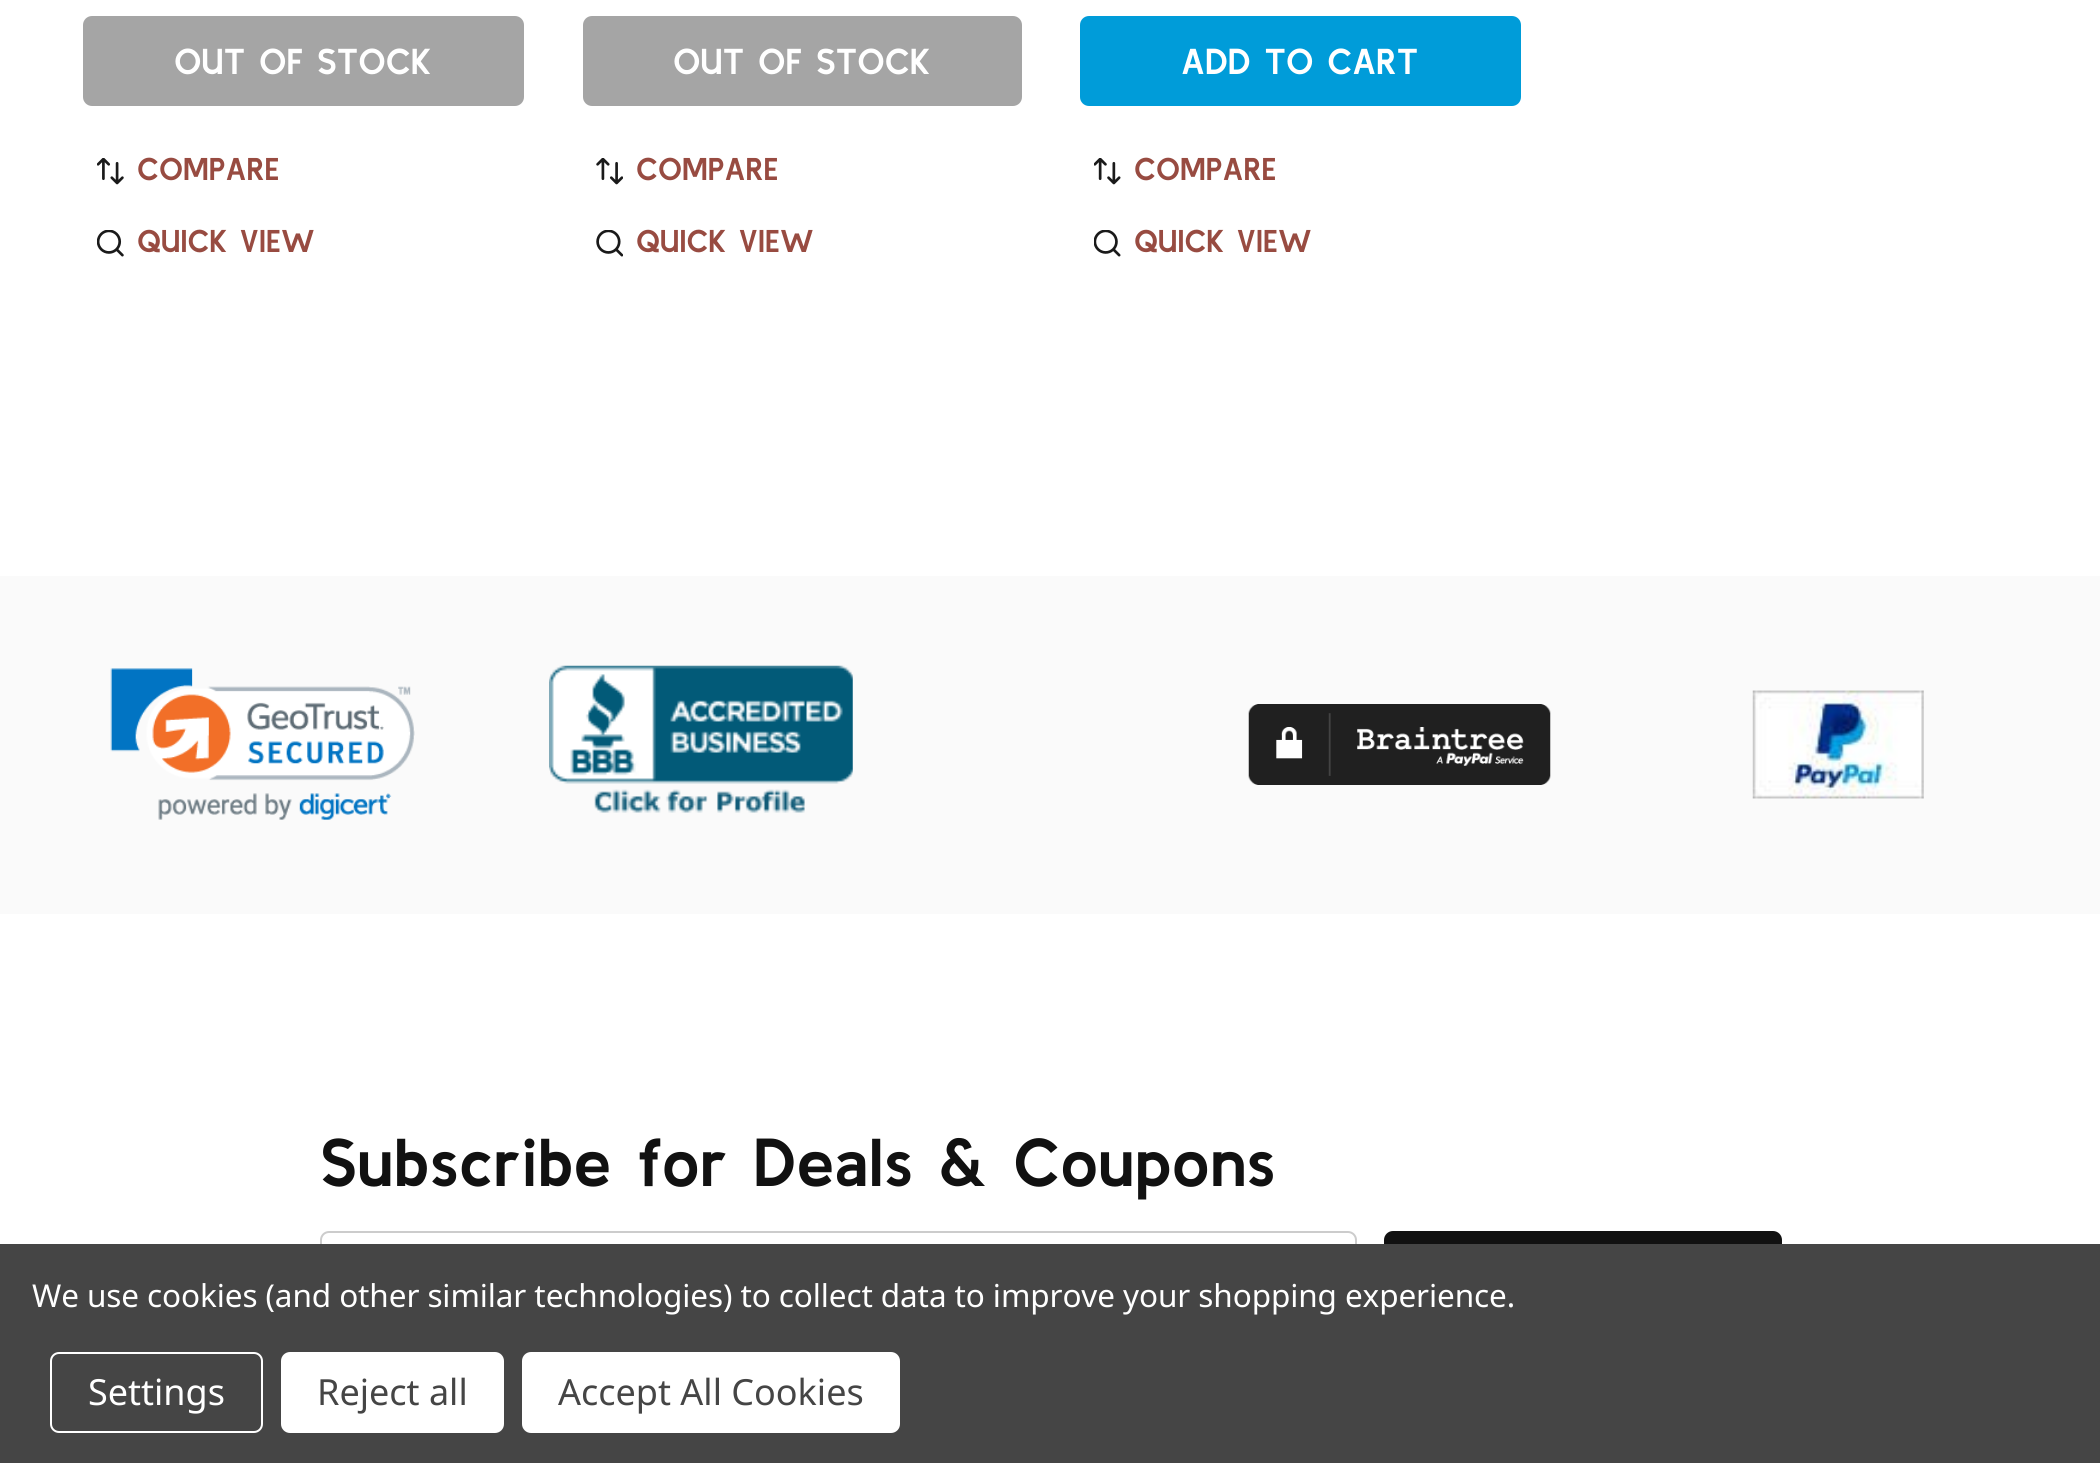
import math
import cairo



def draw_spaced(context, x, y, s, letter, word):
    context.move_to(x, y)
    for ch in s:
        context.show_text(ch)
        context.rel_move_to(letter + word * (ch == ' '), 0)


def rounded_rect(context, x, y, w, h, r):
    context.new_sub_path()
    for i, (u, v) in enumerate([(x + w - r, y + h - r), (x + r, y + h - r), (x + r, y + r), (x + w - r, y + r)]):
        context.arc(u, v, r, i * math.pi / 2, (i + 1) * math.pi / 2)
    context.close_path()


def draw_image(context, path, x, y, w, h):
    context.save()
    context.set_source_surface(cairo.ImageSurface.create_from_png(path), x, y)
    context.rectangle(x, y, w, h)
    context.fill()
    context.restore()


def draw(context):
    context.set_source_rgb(1, 1, 1)
    context.paint()
    context.set_source_rgb(165 / 255, 165 / 255, 165 / 255)
    rounded_rect(context, 83, 16, 441, 90, 9)
    context.fill()
    draw_image(context, "images/1.png", 97, 158, 27, 27)
    draw_image(context, "images/2.png", 97, 230, 27, 27)
    rounded_rect(context, 583, 16, 439, 90, 9)
    context.fill()
    draw_image(context, "images/3.png", 596, 158, 27, 27)
    draw_image(context, "images/4.png", 596, 230, 27, 27)
    context.set_source_rgb(0, 156 / 255, 217 / 255)
    rounded_rect(context, 1080, 16, 441, 90, 9)
    context.fill()
    draw_image(context, "images/5.png", 1094, 158, 27, 27)
    draw_image(context, "images/6.png", 1094, 230, 27, 27)
    context.set_source_rgb(250 / 255, 250 / 255, 250 / 255)
    context.rectangle(0, 576, 2100, 338)
    context.fill()
    draw_image(context, "images/7.png", 110, 668, 305, 152)
    draw_image(context, "images/8.png", 549, 665, 304, 148)
    draw_image(context, "images/9.png", 1248, 704, 303, 81)
    draw_image(context, "images/10.png", 1752, 690, 172, 109)
    rounded_rect(context, 321, 1232, 1035, 106, 8)
    context.set_source_rgb(204 / 255, 204 / 255, 204 / 255)
    context.stroke()
    context.set_source_rgb(17 / 255, 17 / 255, 17 / 255)
    rounded_rect(context, 1384, 1231, 398, 108, 9)
    context.fill()
    context.set_source_rgb(69 / 255, 69 / 255, 69 / 255)
    context.rectangle(0, 1244, 2100, 219)
    context.fill()
    rounded_rect(context, 51, 1353, 211, 79, 8)
    context.set_source_rgb(1, 1, 1)
    context.stroke()
    rounded_rect(context, 281, 1352, 223, 81, 9)
    context.fill()
    rounded_rect(context, 522, 1352, 378, 81, 9)
    context.fill()
    context.select_font_face("Kulim Park", cairo.FontSlant.NORMAL, cairo.FontWeight.BOLD)
    context.set_font_size(36)
    context.move_to(174, 74)
    context.show_text("OUT OF STOCK")
    context.set_font_size(31.5)
    context.set_source_rgb(152 / 255, 75 / 255, 65 / 255)
    context.move_to(137, 180)
    context.show_text("COMPARE")
    context.move_to(137, 252)
    context.show_text("QUICK VIEW")
    context.set_font_size(36)
    context.set_source_rgb(1, 1, 1)
    context.move_to(673, 74)
    context.show_text("OUT OF STOCK")
    context.set_font_size(31.5)
    context.set_source_rgb(152 / 255, 75 / 255, 65 / 255)
    context.move_to(636, 180)
    context.show_text("COMPARE")
    context.move_to(636, 252)
    context.show_text("QUICK VIEW")
    context.set_font_size(36)
    context.set_source_rgb(1, 1, 1)
    context.move_to(1181, 74)
    context.show_text("ADD TO CART")
    context.set_font_size(31.5)
    context.set_source_rgb(152 / 255, 75 / 255, 65 / 255)
    context.move_to(1134, 180)
    context.show_text("COMPARE")
    context.move_to(1134, 252)
    context.show_text("QUICK VIEW")
    context.set_font_size(67.5)
    context.set_source_rgb(17 / 255, 17 / 255, 17 / 255)
    context.move_to(320, 1186)
    context.show_text("Subscribe for Deals & Coupons")
    context.select_font_face("Noto Sans")
    context.set_font_size(31.5)
    context.set_source_rgb(1, 1, 1)
    draw_spaced(context, 32, 1307, "We use cookies (and other similar technologies) to collect data to improve your shopping experience.", -0.1, 0)
    context.set_font_size(36)
    context.move_to(88, 1405)
    context.show_text("Settings")
    context.set_source_rgb(69 / 255, 69 / 255, 69 / 255)
    context.move_to(317, 1405)
    context.show_text("Reject all")
    context.move_to(558, 1405)
    context.show_text("Accept All Cookies")


surface = cairo.ImageSurface(cairo.Format.RGB24, 2100, 1463)
context = cairo.Context(surface)
options = cairo.FontOptions()
options.set_hint_metrics(cairo.HintMetrics.OFF)
options.set_hint_style(cairo.HintStyle.NONE)
context.set_font_options(options)
context.set_miter_limit(4)
draw(context)
surface.write_to_png("out.png")
